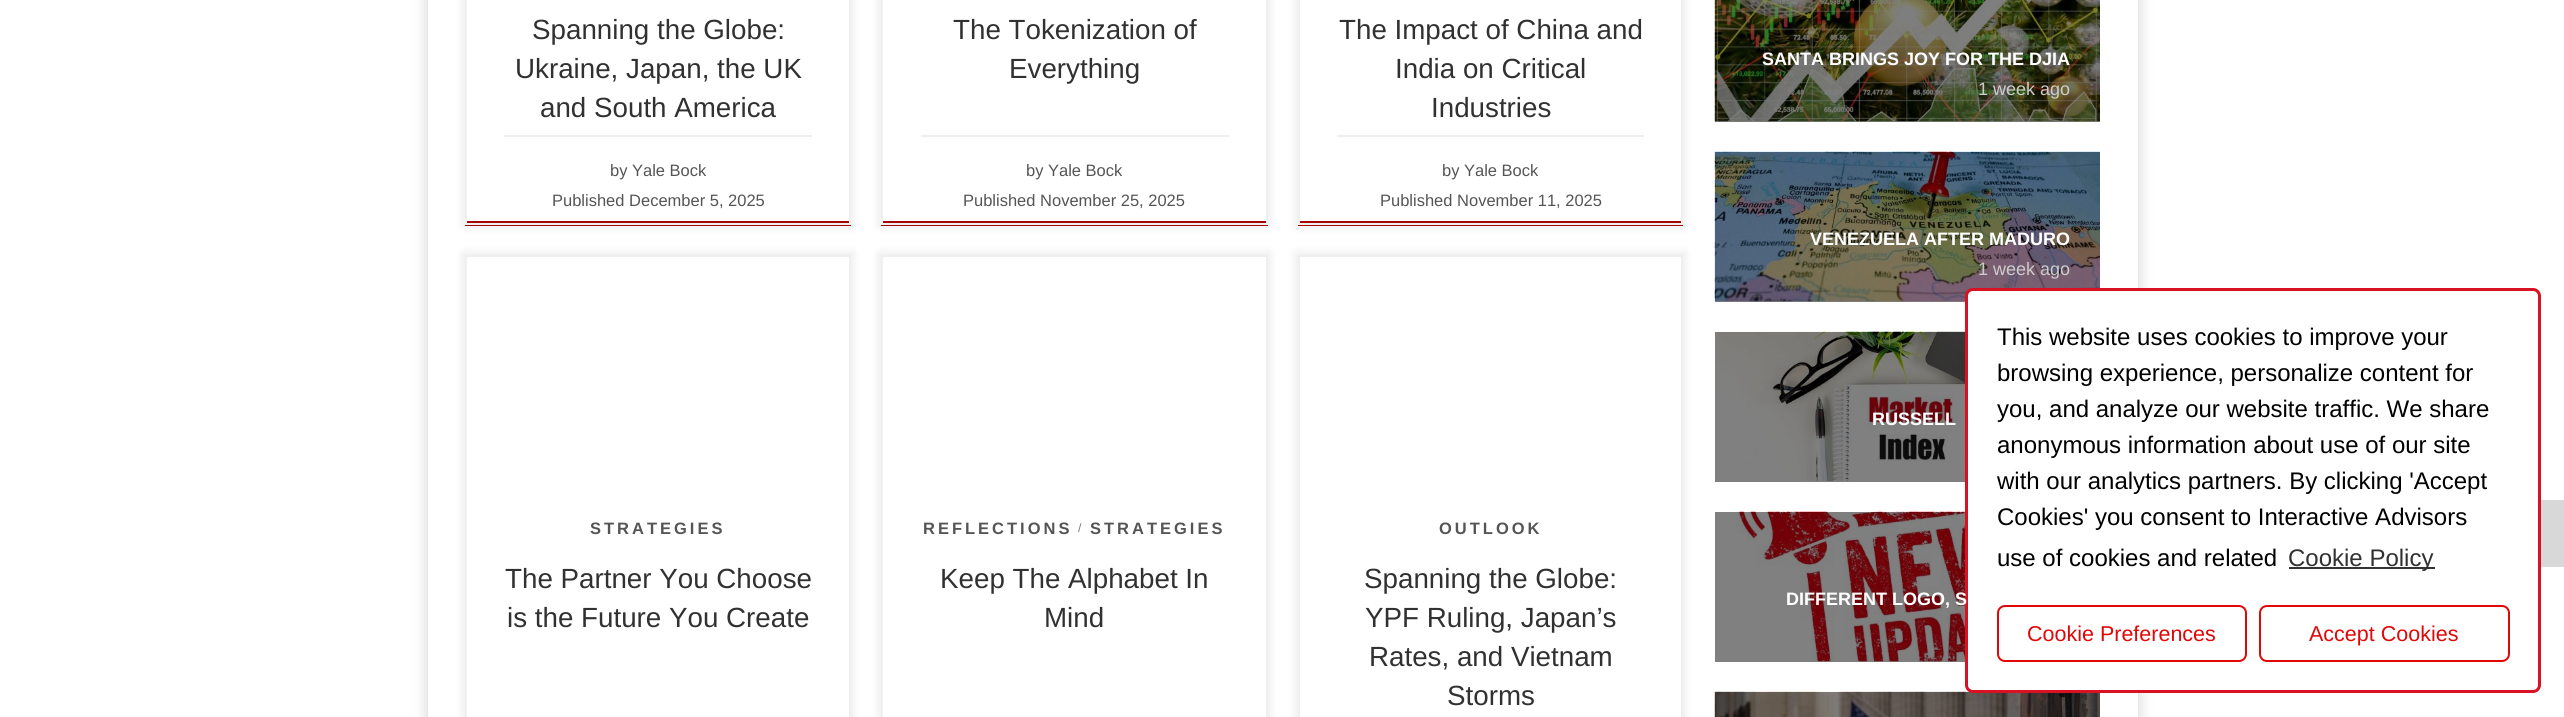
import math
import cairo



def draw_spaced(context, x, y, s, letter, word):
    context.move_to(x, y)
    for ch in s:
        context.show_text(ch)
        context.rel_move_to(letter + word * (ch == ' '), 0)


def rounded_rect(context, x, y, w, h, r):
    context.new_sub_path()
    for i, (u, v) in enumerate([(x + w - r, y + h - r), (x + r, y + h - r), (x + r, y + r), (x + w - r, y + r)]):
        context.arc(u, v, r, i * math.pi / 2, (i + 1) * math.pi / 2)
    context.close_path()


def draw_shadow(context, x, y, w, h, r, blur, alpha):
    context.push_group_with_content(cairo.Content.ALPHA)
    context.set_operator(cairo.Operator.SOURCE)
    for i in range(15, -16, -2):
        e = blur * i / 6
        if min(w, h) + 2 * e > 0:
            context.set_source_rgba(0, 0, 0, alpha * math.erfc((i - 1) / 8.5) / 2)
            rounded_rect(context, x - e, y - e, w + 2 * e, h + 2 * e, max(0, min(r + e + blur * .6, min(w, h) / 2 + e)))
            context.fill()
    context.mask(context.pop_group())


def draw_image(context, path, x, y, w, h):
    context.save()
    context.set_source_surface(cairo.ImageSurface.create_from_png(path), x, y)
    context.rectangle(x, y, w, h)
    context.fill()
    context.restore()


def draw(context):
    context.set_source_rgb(1, 1, 1)
    context.paint()
    context.set_source_rgb(0, 0, 0)
    draw_shadow(context, 428, -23, 1710, 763, 0, 7.5, 0.2)
    context.set_source_rgb(1, 1, 1)
    context.rectangle(428, 0, 1710, 717)
    context.fill()
    context.set_source_rgb(128 / 255, 128 / 255, 128 / 255)
    context.rectangle(1715, 512, 250, 150)
    context.fill()
    context.rectangle(1715, 481, 250, 1)
    context.fill()
    context.rectangle(1715, 301, 250, 1)
    context.fill()
    context.rectangle(1715, 121, 385, 1)
    context.fill()
    context.set_source_rgb(0, 0, 0)
    draw_shadow(context, 462, -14, 392, 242, 0, 4.5, 0.07)
    context.set_source_rgb(1, 1, 1)
    context.rectangle(467, 0, 382, 221)
    context.fill()
    context.set_source_rgb(166 / 255, 5 / 255, 5 / 255)
    context.rectangle(465, 221, 386, 5)
    context.fill()
    context.rectangle(466, -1, 384, 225)
    context.set_source_rgb(239 / 255, 239 / 255, 239 / 255)
    context.stroke()
    context.set_source_rgb(236 / 255, 238 / 255, 239 / 255)
    context.rectangle(504, 135, 308, 2)
    context.fill()
    context.set_source_rgb(0, 0, 0)
    draw_shadow(context, 878, -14, 393, 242, 0, 4.5, 0.07)
    context.set_source_rgb(1, 1, 1)
    context.rectangle(883, 0, 383, 221)
    context.fill()
    context.set_source_rgb(166 / 255, 5 / 255, 5 / 255)
    context.rectangle(881, 221, 387, 5)
    context.fill()
    context.rectangle(882, -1, 385, 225)
    context.set_source_rgb(239 / 255, 239 / 255, 239 / 255)
    context.stroke()
    context.set_source_rgb(236 / 255, 238 / 255, 239 / 255)
    context.rectangle(921, 135, 308, 2)
    context.fill()
    context.save()
    context.set_fill_rule(cairo.FillRule.EVEN_ODD)
    context.new_path()
    context.move_to(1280, 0)
    context.line_to(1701, 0)
    context.line_to(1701, 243)
    context.line_to(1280, 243)
    context.close_path()
    context.move_to(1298, -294)
    context.line_to(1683, -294)
    context.line_to(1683, 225)
    context.line_to(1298, 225)
    context.close_path()
    context.clip()
    context.set_source_rgb(0, 0, 0)
    draw_shadow(context, 1295, -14, 391, 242, 0, 4.5, 0.07)
    context.restore()
    context.set_source_rgb(166 / 255, 5 / 255, 5 / 255)
    context.rectangle(1298, 221, 385, 5)
    context.fill()
    context.rectangle(1299, -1, 383, 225)
    context.set_source_rgb(239 / 255, 239 / 255, 239 / 255)
    context.stroke()
    context.set_source_rgb(236 / 255, 238 / 255, 239 / 255)
    context.rectangle(1337, 135, 307, 2)
    context.fill()
    context.set_source_rgb(0, 0, 0)
    draw_shadow(context, 462, 252, 392, 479, 0, 4.5, 0.07)
    context.set_source_rgb(1, 1, 1)
    context.rectangle(467, 257, 382, 460)
    context.fill()
    context.rectangle(466, 256, 384, 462)
    context.set_source_rgb(239 / 255, 239 / 255, 239 / 255)
    context.stroke()
    context.set_source_rgb(0, 0, 0)
    draw_shadow(context, 878, 252, 393, 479, 0, 4.5, 0.07)
    context.set_source_rgb(1, 1, 1)
    context.rectangle(883, 257, 383, 460)
    context.fill()
    context.rectangle(882, 256, 385, 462)
    context.set_source_rgb(239 / 255, 239 / 255, 239 / 255)
    context.stroke()
    context.save()
    context.set_fill_rule(cairo.FillRule.EVEN_ODD)
    context.new_path()
    context.move_to(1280, 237)
    context.line_to(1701, 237)
    context.line_to(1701, 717)
    context.line_to(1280, 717)
    context.close_path()
    context.move_to(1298, 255)
    context.line_to(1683, 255)
    context.line_to(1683, 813)
    context.line_to(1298, 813)
    context.close_path()
    context.clip()
    context.set_source_rgb(0, 0, 0)
    draw_shadow(context, 1295, 252, 391, 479, 0, 4.5, 0.07)
    context.restore()
    context.rectangle(1299, 256, 383, 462)
    context.stroke()
    draw_image(context, "images/1.png", 1714, 0, 386, 122)
    draw_image(context, "images/2.png", 1714, 151, 386, 151)
    draw_image(context, "images/3.png", 1715, 331, 250, 151)
    draw_image(context, "images/4.png", 1736, 511, 229, 151)
    draw_image(context, "images/5.png", 1714, 691, 386, 26)
    context.set_source_rgb(1, 1, 1)
    rounded_rect(context, 1966.5, 289.5, 573, 402, 6.5)
    context.fill_preserve()
    context.set_source_rgb(216 / 255, 18 / 255, 34 / 255)
    context.set_line_width(3)
    context.stroke()
    context.set_source_rgb(51 / 255, 51 / 255, 51 / 255)
    context.rectangle(2289, 567, 146, 2)
    context.fill()
    rounded_rect(context, 1998, 606, 248, 55, 7)
    context.set_source_rgb(225 / 255, 7 / 255, 7 / 255)
    context.set_line_width(2)
    context.stroke()
    rounded_rect(context, 2260, 606, 249, 55, 7)
    context.stroke()
    context.set_source_rgb(216 / 255, 216 / 255, 216 / 255)
    context.rectangle(2541, 500, 23, 67)
    context.fill()
    context.select_font_face("Liberation Sans")
    context.set_font_size(27.75)
    context.set_source_rgb(49 / 255, 49 / 255, 49 / 255)
    context.move_to(532, 39)
    context.show_text("Spanning the Globe:")
    context.move_to(515, 78)
    context.show_text("Ukraine, Japan, the UK")
    context.move_to(540, 117)
    context.show_text("and South America")
    context.set_font_size(16.5)
    context.set_source_rgb(85 / 255, 85 / 255, 85 / 255)
    context.move_to(610, 176)
    context.show_text("by Yale Bock")
    context.move_to(552, 206)
    context.show_text("Published December 5, 2025")
    context.set_font_size(27.75)
    context.set_source_rgb(49 / 255, 49 / 255, 49 / 255)
    context.move_to(953, 39)
    context.show_text("The Tokenization of")
    context.move_to(1009, 78)
    context.show_text("Everything")
    context.set_font_size(16.5)
    context.set_source_rgb(85 / 255, 85 / 255, 85 / 255)
    context.move_to(1026, 176)
    context.show_text("by Yale Bock")
    context.move_to(963, 206)
    context.show_text("Published November 25, 2025")
    context.set_font_size(27.75)
    context.set_source_rgb(49 / 255, 49 / 255, 49 / 255)
    context.move_to(1339, 39)
    context.show_text("The Impact of China and")
    context.move_to(1395, 78)
    context.show_text("India on Critical")
    context.move_to(1431, 117)
    context.show_text("Industries")
    context.set_font_size(16.5)
    context.set_source_rgb(85 / 255, 85 / 255, 85 / 255)
    context.move_to(1442, 176)
    context.show_text("by Yale Bock")
    context.move_to(1380, 206)
    context.show_text("Published November 11, 2025")
    context.select_font_face("Liberation Sans", cairo.FontSlant.NORMAL, cairo.FontWeight.BOLD)
    draw_spaced(context, 590, 534, "STRATEGIES", 3, 0)
    context.select_font_face("Liberation Sans")
    context.set_font_size(27.75)
    context.set_source_rgb(49 / 255, 49 / 255, 49 / 255)
    context.move_to(505, 588)
    context.show_text("The Partner You Choose")
    context.move_to(507, 627)
    context.show_text("is the Future You Create")
    context.select_font_face("Liberation Sans", cairo.FontSlant.NORMAL, cairo.FontWeight.BOLD)
    context.set_font_size(16.5)
    context.set_source_rgb(85 / 255, 85 / 255, 85 / 255)
    draw_spaced(context, 923, 534, "REFLECTIONS", 3, 0)
    context.select_font_face("Liberation Sans")
    context.set_font_size(12)
    context.set_source_rgb(119 / 255, 119 / 255, 119 / 255)
    draw_spaced(context, 1078, 532, "/", 3, 0)
    context.select_font_face("Liberation Sans", cairo.FontSlant.NORMAL, cairo.FontWeight.BOLD)
    context.set_font_size(16.5)
    context.set_source_rgb(85 / 255, 85 / 255, 85 / 255)
    draw_spaced(context, 1090, 534, "STRATEGIES", 3, 0)
    context.select_font_face("Liberation Sans")
    context.set_font_size(27.75)
    context.set_source_rgb(49 / 255, 49 / 255, 49 / 255)
    context.move_to(940, 588)
    context.show_text("Keep The Alphabet In")
    context.move_to(1044, 627)
    context.show_text("Mind")
    context.select_font_face("Liberation Sans", cairo.FontSlant.NORMAL, cairo.FontWeight.BOLD)
    context.set_font_size(16.5)
    context.set_source_rgb(85 / 255, 85 / 255, 85 / 255)
    draw_spaced(context, 1439, 534, "OUTLOOK", 3, 0)
    context.select_font_face("Liberation Sans")
    context.set_font_size(27.75)
    context.set_source_rgb(49 / 255, 49 / 255, 49 / 255)
    context.move_to(1364, 588)
    context.show_text("Spanning the Globe:")
    context.move_to(1365, 627)
    context.show_text("YPF Ruling, Japan’s")
    context.move_to(1369, 666)
    context.show_text("Rates, and Vietnam")
    context.move_to(1447, 705)
    context.show_text("Storms")
    context.select_font_face("Liberation Sans", cairo.FontSlant.NORMAL, cairo.FontWeight.BOLD)
    context.set_font_size(18)
    context.set_source_rgb(1, 1, 1)
    context.move_to(1762, 65)
    context.show_text("SANTA BRINGS JOY FOR THE DJIA")
    context.select_font_face("Liberation Sans")
    context.set_source_rgb(204 / 255, 204 / 255, 204 / 255)
    context.move_to(1978, 95)
    context.show_text("1 week ago")
    context.select_font_face("Liberation Sans", cairo.FontSlant.NORMAL, cairo.FontWeight.BOLD)
    context.set_source_rgb(1, 1, 1)
    context.move_to(1810, 245)
    context.show_text("VENEZUELA AFTER MADURO")
    context.select_font_face("Liberation Sans")
    context.set_source_rgb(204 / 255, 204 / 255, 204 / 255)
    context.move_to(1978, 275)
    context.show_text("1 week ago")
    context.select_font_face("Liberation Sans", cairo.FontSlant.NORMAL, cairo.FontWeight.BOLD)
    context.set_source_rgb(1, 1, 1)
    context.move_to(1872, 425)
    context.show_text("RUSSELL")
    context.move_to(1786, 605)
    context.show_text("DIFFERENT LOGO, S")
    context.select_font_face("Liberation Sans")
    context.set_font_size(24)
    context.set_source_rgb(0, 0, 0)
    context.move_to(1997, 345)
    context.show_text("This website uses cookies to improve your")
    context.move_to(1997, 381)
    context.show_text("browsing experience, personalize content for")
    context.move_to(1997, 417)
    context.show_text("you, and analyze our website traffic. We share")
    context.move_to(1997, 453)
    context.show_text("anonymous information about use of our site")
    context.move_to(1997, 489)
    context.show_text("with our analytics partners. By clicking 'Accept")
    context.move_to(1997, 525)
    context.show_text("Cookies' you consent to Interactive Advisors")
    context.move_to(1997, 566)
    context.show_text("use of cookies and related")
    context.set_source_rgb(49 / 255, 49 / 255, 49 / 255)
    context.move_to(2288, 566)
    context.show_text("Cookie Policy")
    context.set_font_size(21.5)
    context.set_source_rgb(225 / 255, 7 / 255, 7 / 255)
    context.move_to(2027, 641)
    context.show_text("Cookie Preferences")
    context.move_to(2309, 641)
    context.show_text("Accept Cookies")


surface = cairo.ImageSurface(cairo.Format.RGB24, 2564, 717)
context = cairo.Context(surface)
options = cairo.FontOptions()
options.set_hint_metrics(cairo.HintMetrics.OFF)
options.set_hint_style(cairo.HintStyle.NONE)
context.set_font_options(options)
context.set_miter_limit(4)
draw(context)
surface.write_to_png("out.png")
